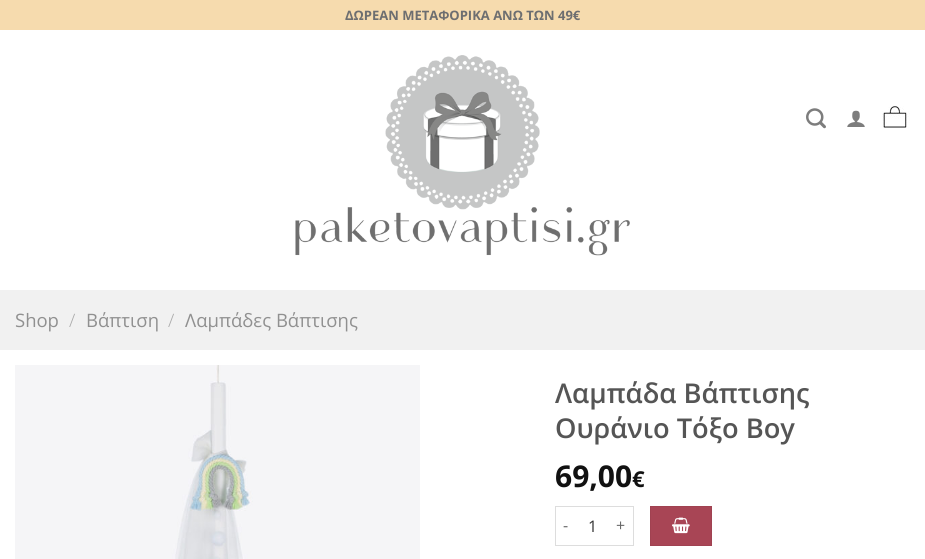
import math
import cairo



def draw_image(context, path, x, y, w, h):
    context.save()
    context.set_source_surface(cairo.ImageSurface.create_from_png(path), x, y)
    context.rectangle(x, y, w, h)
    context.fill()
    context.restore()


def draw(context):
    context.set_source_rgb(1, 1, 1)
    context.paint()
    context.set_source_rgb(246 / 255, 219 / 255, 174 / 255)
    context.rectangle(0, 0, 925, 30)
    context.fill()
    draw_image(context, "images/1.png", 295, 55, 335, 201)
    draw_image(context, "images/2.png", 806, 108, 20, 21)
    draw_image(context, "images/3.png", 847, 110, 18, 17)
    draw_image(context, "images/4.png", 882, 106, 28, 22)
    context.set_source_rgb(241 / 255, 241 / 255, 241 / 255)
    context.rectangle(0, 290, 925, 60)
    context.fill()
    draw_image(context, "images/5.png", 15, 365, 405, 194)
    context.set_source_rgb(221 / 255, 221 / 255, 221 / 255)
    context.rectangle(555, 506, 79, 1)
    context.fill()
    context.rectangle(555, 545, 54, 1)
    context.fill()
    context.rectangle(555, 506, 1, 40)
    context.fill()
    context.rectangle(633, 506, 1, 40)
    context.fill()
    context.rectangle(609, 545, 25, 1)
    context.fill()
    context.set_source_rgb(168 / 255, 69 / 255, 85 / 255)
    context.rectangle(650.5, 506.5, 61, 39)
    context.fill_preserve()
    context.set_source_rgb(160 / 255, 66 / 255, 81 / 255)
    context.set_line_width(1)
    context.stroke()
    draw_image(context, "images/6.png", 672, 517, 18, 17)
    context.select_font_face("Open Sans", cairo.FontSlant.NORMAL, cairo.FontWeight.BOLD)
    context.set_font_size(13)
    context.set_source_rgb(109 / 255, 110 / 255, 112 / 255)
    context.move_to(345, 20)
    context.show_text("ΔΩΡΕΑΝ ΜΕΤΑΦΟΡΙΚΑ ΑΝΩ ΤΩΝ 49€")
    context.select_font_face("Open Sans")
    context.set_font_size(18.5)
    context.set_source_rgb(144 / 255, 144 / 255, 144 / 255)
    context.move_to(15, 327)
    context.show_text("Shop")
    context.select_font_face("Open Sans Light")
    context.set_source_rgb(169 / 255, 169 / 255, 169 / 255)
    context.move_to(69, 327)
    context.show_text("/")
    context.select_font_face("Open Sans")
    context.set_source_rgb(144 / 255, 144 / 255, 144 / 255)
    context.move_to(86, 327)
    context.show_text("Βάπτιση")
    context.select_font_face("Open Sans Light")
    context.set_source_rgb(169 / 255, 169 / 255, 169 / 255)
    context.move_to(168, 327)
    context.show_text("/")
    context.select_font_face("Open Sans")
    context.set_source_rgb(144 / 255, 144 / 255, 144 / 255)
    context.move_to(185, 327)
    context.show_text("Λαμπάδες Βάπτισης")
    context.select_font_face("Open Sans SemiBold")
    context.set_font_size(27.25)
    context.set_source_rgb(85 / 255, 85 / 255, 85 / 255)
    context.move_to(555, 403)
    context.show_text("Λαμπάδα Βάπτισης")
    context.move_to(555, 438)
    context.show_text("Ουράνιο Τόξο Boy")
    context.select_font_face("Open Sans", cairo.FontSlant.NORMAL, cairo.FontWeight.BOLD)
    context.set_font_size(30)
    context.set_source_rgb(17 / 255, 17 / 255, 17 / 255)
    context.move_to(555, 487)
    context.show_text("69,00")
    context.set_font_size(22)
    context.move_to(632, 487)
    context.show_text("€")
    context.select_font_face("Open Sans")
    context.set_font_size(16)
    context.set_source_rgb(102 / 255, 102 / 255, 102 / 255)
    context.move_to(563, 531)
    context.show_text("-")
    context.set_source_rgb(51 / 255, 51 / 255, 51 / 255)
    context.move_to(588, 532)
    context.show_text("1")
    context.set_source_rgb(102 / 255, 102 / 255, 102 / 255)
    context.move_to(616, 531)
    context.show_text("+")


surface = cairo.ImageSurface(cairo.Format.RGB24, 925, 559)
context = cairo.Context(surface)
options = cairo.FontOptions()
options.set_hint_metrics(cairo.HintMetrics.OFF)
options.set_hint_style(cairo.HintStyle.NONE)
context.set_font_options(options)
context.set_miter_limit(4)
draw(context)
surface.write_to_png("out.png")
